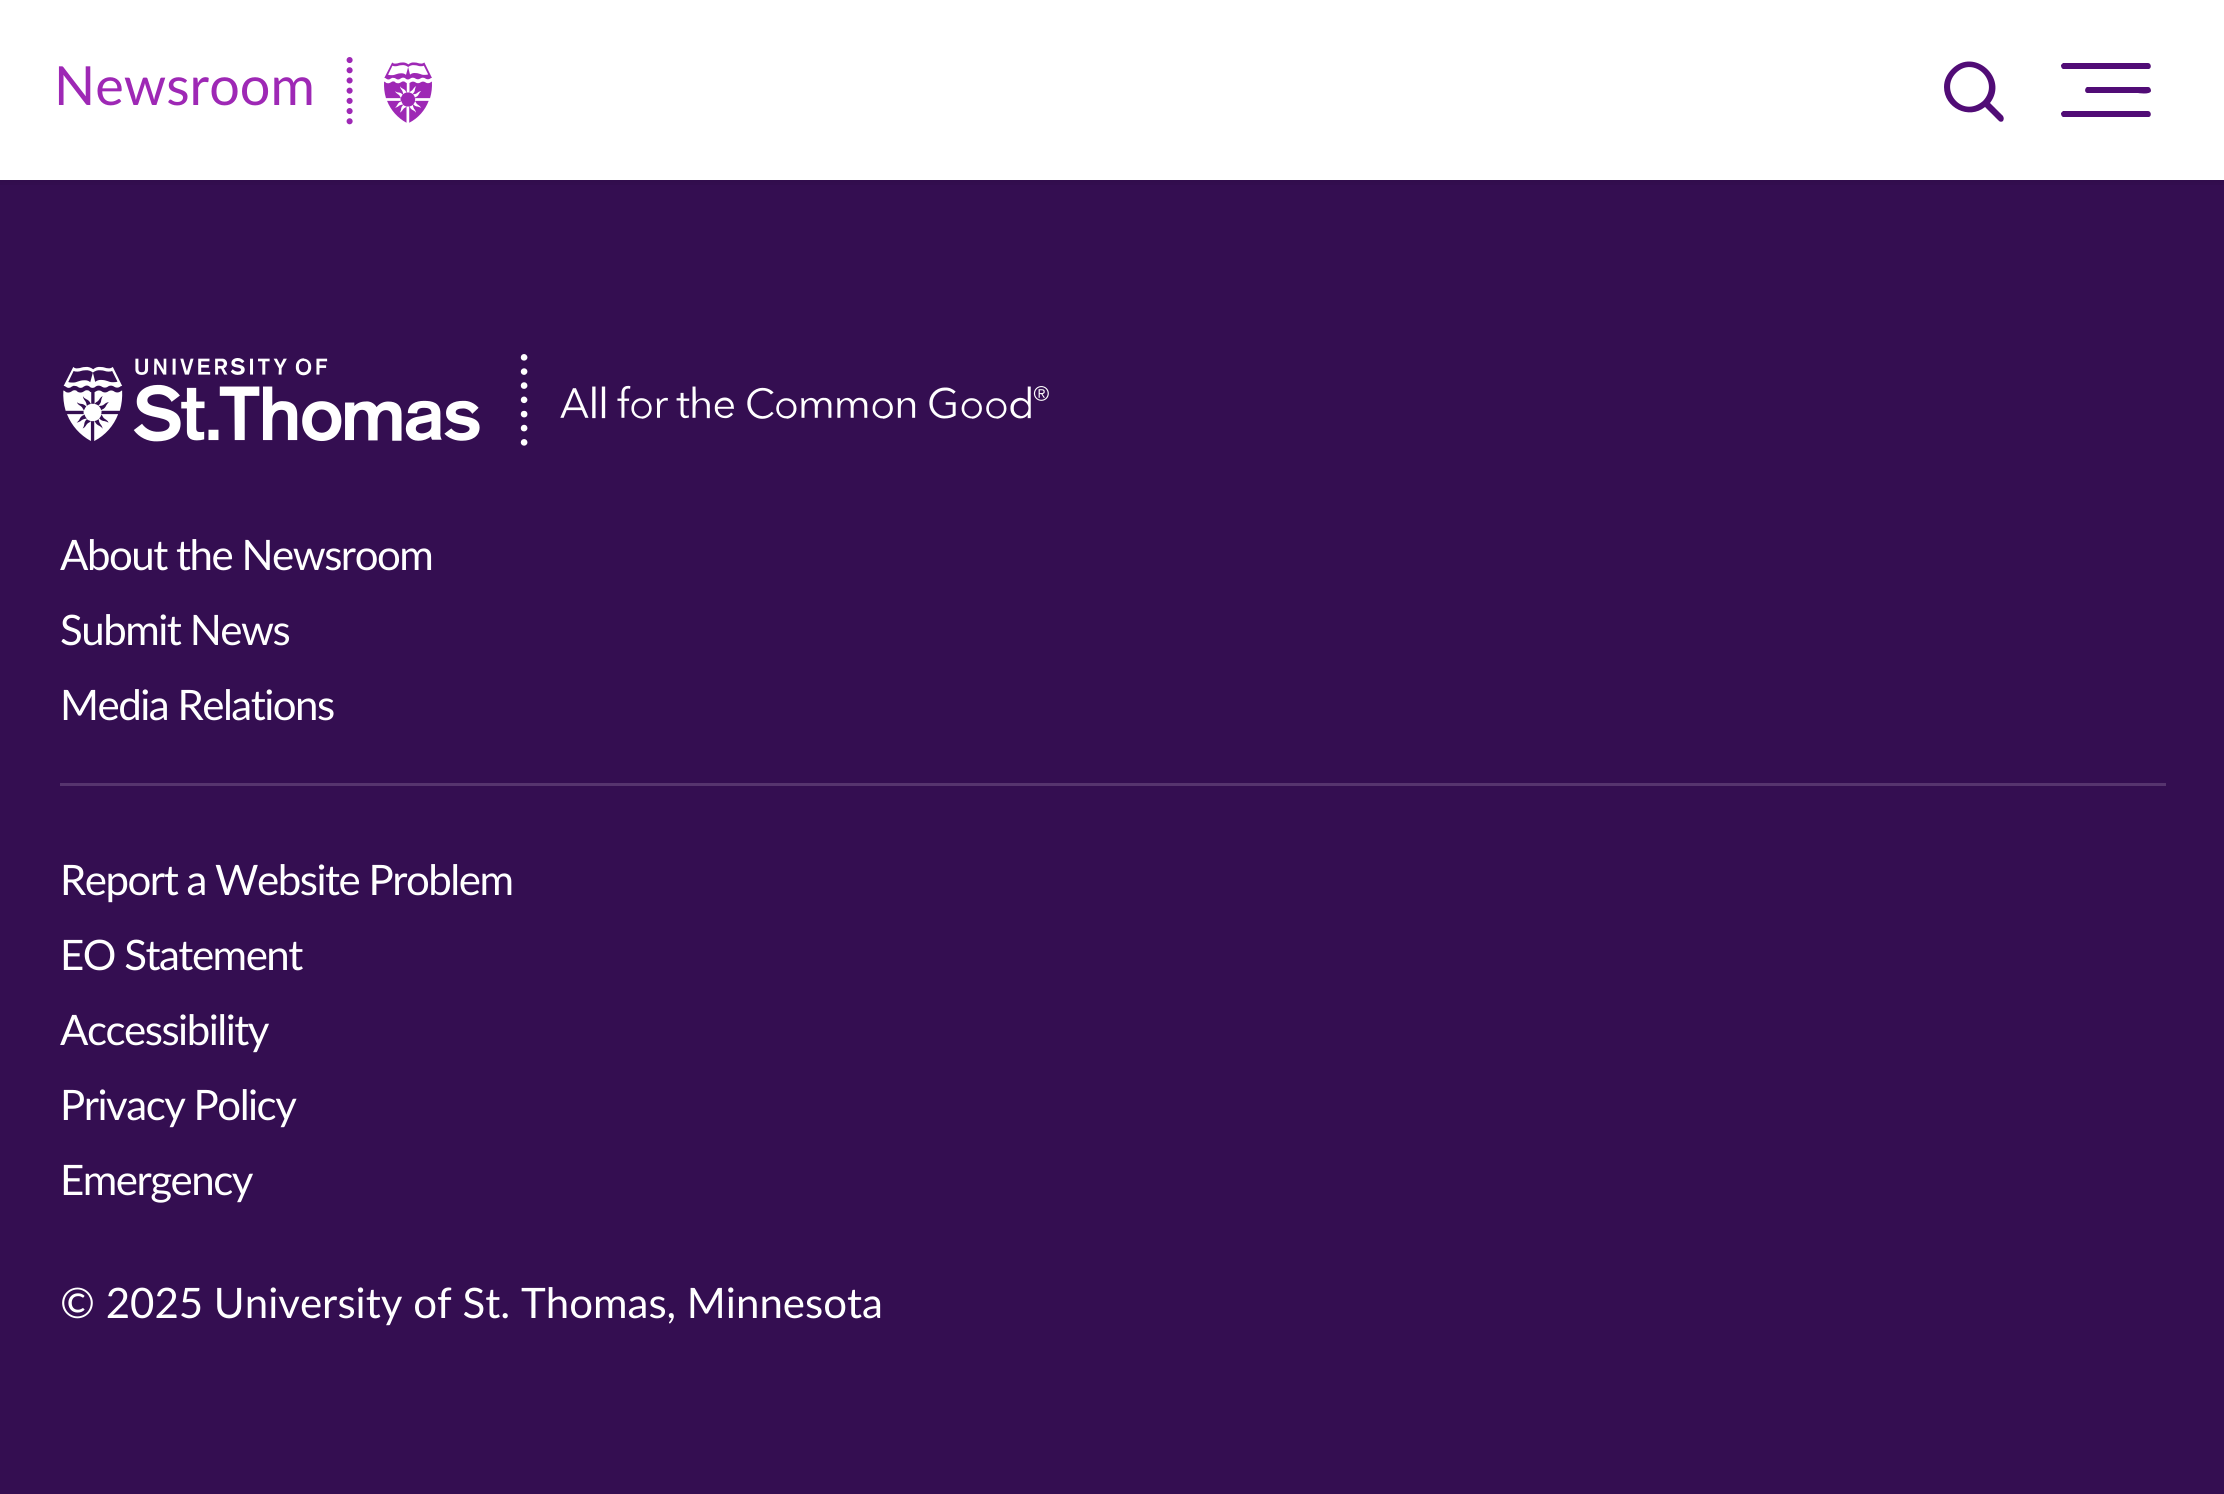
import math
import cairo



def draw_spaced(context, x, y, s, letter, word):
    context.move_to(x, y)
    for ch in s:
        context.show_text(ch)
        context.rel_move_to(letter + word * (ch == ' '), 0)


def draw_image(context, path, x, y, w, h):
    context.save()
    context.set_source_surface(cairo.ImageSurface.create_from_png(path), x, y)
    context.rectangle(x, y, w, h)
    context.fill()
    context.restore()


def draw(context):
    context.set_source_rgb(52 / 255, 14 / 255, 81 / 255)
    context.paint()
    context.set_source_rgb(1, 1, 1)
    context.rectangle(0, 0, 2224, 180)
    context.fill()
    draw_image(context, "images/1.png", 346, 57, 86, 68)
    context.set_source_rgb(81 / 255, 12 / 255, 118 / 255)
    context.set_fill_rule(cairo.FillRule.EVEN_ODD)
    context.new_path()
    context.move_to(1944, 87)
    context.curve_to(1944, 80, 1947, 74, 1952, 69)
    context.curve_to(1974, 47, 2009, 78, 1990, 103)
    context.line_to(2003, 116)
    context.curve_to(2004, 118, 2004, 119, 2003, 121)
    context.curve_to(2002, 122, 2000, 122, 1999, 121)
    context.line_to(1985, 107)
    context.curve_to(1969, 120, 1944, 108, 1944, 87)
    context.close_path()
    context.move_to(1983, 101)
    context.curve_to(1962, 119, 1939, 90, 1956, 73)
    context.curve_to(1974, 55, 2001, 82, 1983, 101)
    context.close_path()
    context.fill()
    context.set_fill_rule(cairo.FillRule.WINDING)
    context.new_path()
    context.move_to(2148, 63)
    context.line_to(2063, 63)
    context.line_to(2061, 65)
    context.curve_to(2061, 66, 2061, 68, 2063, 69)
    context.line_to(2149, 69)
    context.curve_to(2152, 68, 2151, 63, 2148, 63)
    context.close_path()
    context.move_to(2148, 111)
    context.line_to(2063, 111)
    context.line_to(2061, 113)
    context.curve_to(2061, 114, 2061, 116, 2063, 117)
    context.line_to(2149, 117)
    context.curve_to(2152, 116, 2151, 111, 2148, 111)
    context.close_path()
    context.move_to(2148, 87)
    context.line_to(2087, 87)
    context.curve_to(2085, 88, 2084, 92, 2087, 93)
    context.line_to(2138, 93)
    context.curve_to(2138, 93, 2150, 95, 2151, 91)
    context.curve_to(2151, 89, 2150, 87, 2148, 87)
    context.close_path()
    context.fill()
    gradient = cairo.LinearGradient(1113, 180, 1113, 192)
    gradient.add_color_stop_rgba(0, 0, 0, 0, 0.06)
    gradient.add_color_stop_rgba(1, 0, 0, 0, 0)
    context.set_source(gradient)
    context.rectangle(0, 180, 2224, 5)
    context.fill()
    context.set_source_rgb(86 / 255, 52 / 255, 110 / 255)
    context.rectangle(60, 783, 2106, 3)
    context.fill()
    draw_image(context, "images/2.png", 63, 354, 986, 92)
    context.select_font_face("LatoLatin")
    context.set_font_size(54)
    context.set_source_rgb(158 / 255, 40 / 255, 181 / 255)
    context.move_to(54, 105)
    context.show_text("Newsroom")
    context.set_font_size(42)
    context.set_source_rgb(1, 1, 1)
    draw_spaced(context, 60, 570, "About the Newsroom", -1.5, 0)
    draw_spaced(context, 60, 645, "Submit News", -1.5, 0)
    draw_spaced(context, 60, 720, "Media Relations", -1.5, 0)
    draw_spaced(context, 60, 895, "Report a Website Problem", -1.5, 0)
    draw_spaced(context, 60, 970, "EO Statement", -1.5, 0)
    draw_spaced(context, 60, 1045, "Accessibility", -1.5, 0)
    draw_spaced(context, 60, 1120, "Privacy Policy", -1.5, 0)
    draw_spaced(context, 60, 1195, "Emergency", -1.5, 0)
    context.move_to(60, 1318)
    context.show_text("© 2025 University of St. Thomas, Minnesota")


surface = cairo.ImageSurface(cairo.Format.RGB24, 2224, 1494)
context = cairo.Context(surface)
options = cairo.FontOptions()
options.set_hint_metrics(cairo.HintMetrics.OFF)
options.set_hint_style(cairo.HintStyle.NONE)
context.set_font_options(options)
context.set_miter_limit(4)
draw(context)
surface.write_to_png("out.png")
